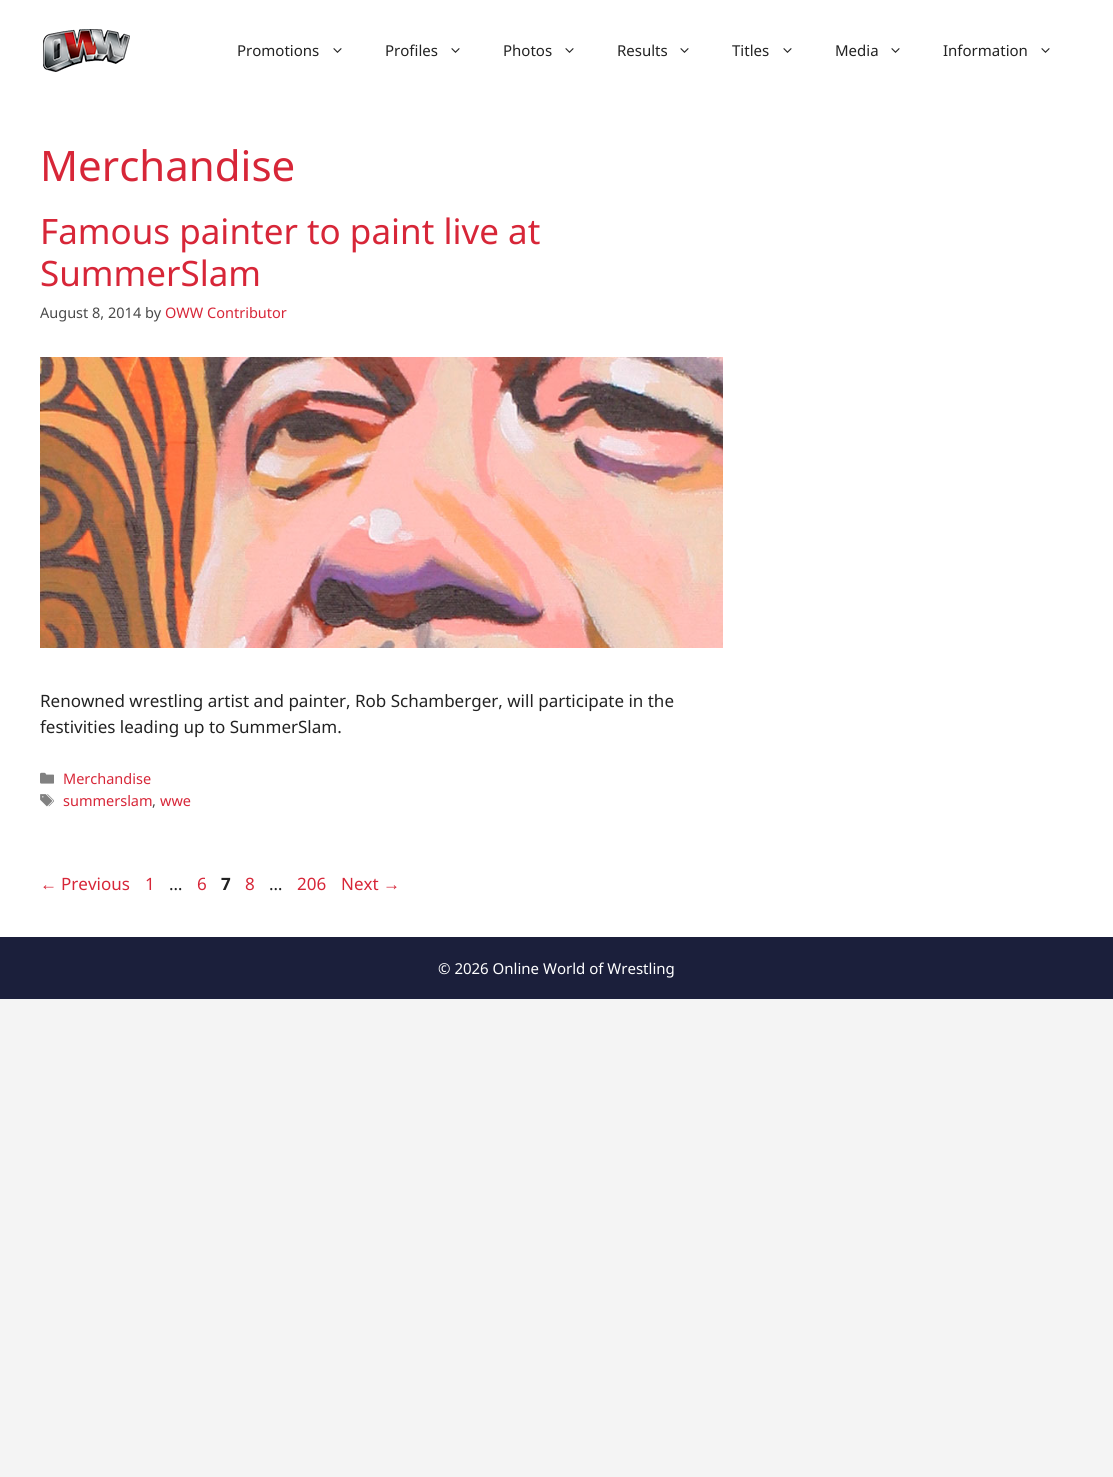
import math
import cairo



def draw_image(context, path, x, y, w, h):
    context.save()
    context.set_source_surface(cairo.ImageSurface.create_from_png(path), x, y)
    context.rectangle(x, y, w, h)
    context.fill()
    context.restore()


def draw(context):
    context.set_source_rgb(244 / 255, 244 / 255, 244 / 255)
    context.paint()
    context.set_source_rgb(1, 1, 1)
    context.rectangle(0, 0, 1113, 937)
    context.fill()
    draw_image(context, "images/1.png", 43, 29, 87, 43)
    draw_image(context, "images/2.png", 333, 48, 9, 5)
    draw_image(context, "images/2.png", 451, 48, 9, 5)
    draw_image(context, "images/2.png", 565, 48, 9, 5)
    draw_image(context, "images/2.png", 680, 48, 9, 5)
    draw_image(context, "images/2.png", 783, 48, 9, 5)
    draw_image(context, "images/2.png", 891, 48, 9, 5)
    draw_image(context, "images/2.png", 1041, 48, 9, 5)
    draw_image(context, "images/3.png", 40, 357, 683, 291)
    draw_image(context, "images/4.png", 40, 772, 14, 12)
    draw_image(context, "images/5.png", 40, 794, 14, 13)
    context.set_source_rgb(27 / 255, 31 / 255, 59 / 255)
    context.rectangle(0, 937, 1113, 62)
    context.fill()
    context.select_font_face("Noto Sans")
    context.set_font_size(15)
    context.set_source_rgb(34 / 255, 34 / 255, 34 / 255)
    context.move_to(237, 56)
    context.show_text("Promotions")
    context.move_to(385, 56)
    context.show_text("Profiles")
    context.move_to(503, 56)
    context.show_text("Photos")
    context.move_to(617, 56)
    context.show_text("Results")
    context.move_to(732, 56)
    context.show_text("Titles")
    context.move_to(835, 56)
    context.show_text("Media")
    context.move_to(943, 56)
    context.show_text("Information")
    context.set_font_size(42)
    context.set_source_rgb(215 / 255, 38 / 255, 56 / 255)
    context.move_to(40, 181)
    context.show_text("Merchandise")
    context.set_font_size(35)
    context.move_to(40, 244)
    context.show_text("Famous painter to paint live at")
    context.move_to(40, 286)
    context.show_text("SummerSlam")
    context.set_font_size(14.5)
    context.set_source_rgb(74 / 255, 74 / 255, 74 / 255)
    context.move_to(40, 318)
    context.show_text("August 8, 2014 by")
    context.set_source_rgb(215 / 255, 38 / 255, 56 / 255)
    context.move_to(165, 318)
    context.show_text("OWW Contributor")
    context.set_font_size(17)
    context.set_source_rgb(34 / 255, 34 / 255, 34 / 255)
    context.move_to(40, 707)
    context.show_text("Renowned wrestling artist and painter, Rob Schamberger, will participate in the")
    context.move_to(40, 733)
    context.show_text("festivities leading up to SummerSlam.")
    context.set_font_size(14.5)
    context.set_source_rgb(215 / 255, 38 / 255, 56 / 255)
    context.move_to(63, 784)
    context.show_text("Merchandise")
    context.move_to(63, 806)
    context.show_text("summerslam")
    context.set_source_rgb(74 / 255, 74 / 255, 74 / 255)
    context.move_to(152, 806)
    context.show_text(",")
    context.set_source_rgb(215 / 255, 38 / 255, 56 / 255)
    context.move_to(160, 806)
    context.show_text("wwe")
    context.select_font_face("Liberation Sans")
    context.set_font_size(17)
    context.move_to(40, 890)
    context.show_text("←")
    context.select_font_face("Noto Sans")
    context.move_to(61, 890)
    context.show_text("Previous")
    context.move_to(145, 890)
    context.show_text("1")
    context.set_source_rgb(34 / 255, 34 / 255, 34 / 255)
    context.move_to(169, 890)
    context.show_text("…")
    context.set_source_rgb(215 / 255, 38 / 255, 56 / 255)
    context.move_to(197, 890)
    context.show_text("6")
    context.select_font_face("Noto Sans", cairo.FontSlant.NORMAL, cairo.FontWeight.BOLD)
    context.set_source_rgb(34 / 255, 34 / 255, 34 / 255)
    context.move_to(221, 890)
    context.show_text("7")
    context.select_font_face("Noto Sans")
    context.set_source_rgb(215 / 255, 38 / 255, 56 / 255)
    context.move_to(245, 890)
    context.show_text("8")
    context.set_source_rgb(34 / 255, 34 / 255, 34 / 255)
    context.move_to(269, 890)
    context.show_text("…")
    context.set_source_rgb(215 / 255, 38 / 255, 56 / 255)
    context.move_to(297, 890)
    context.show_text("206")
    context.move_to(341, 890)
    context.show_text("Next")
    context.select_font_face("Liberation Sans")
    context.move_to(383, 890)
    context.show_text("→")
    context.select_font_face("Noto Sans")
    context.set_font_size(15)
    context.set_source_rgb(1, 1, 1)
    context.move_to(438, 974)
    context.show_text("© 2026 Online World of Wrestling")


surface = cairo.ImageSurface(cairo.Format.RGB24, 1113, 1477)
context = cairo.Context(surface)
options = cairo.FontOptions()
options.set_hint_metrics(cairo.HintMetrics.OFF)
options.set_hint_style(cairo.HintStyle.NONE)
context.set_font_options(options)
context.set_miter_limit(4)
draw(context)
surface.write_to_png("out.png")
